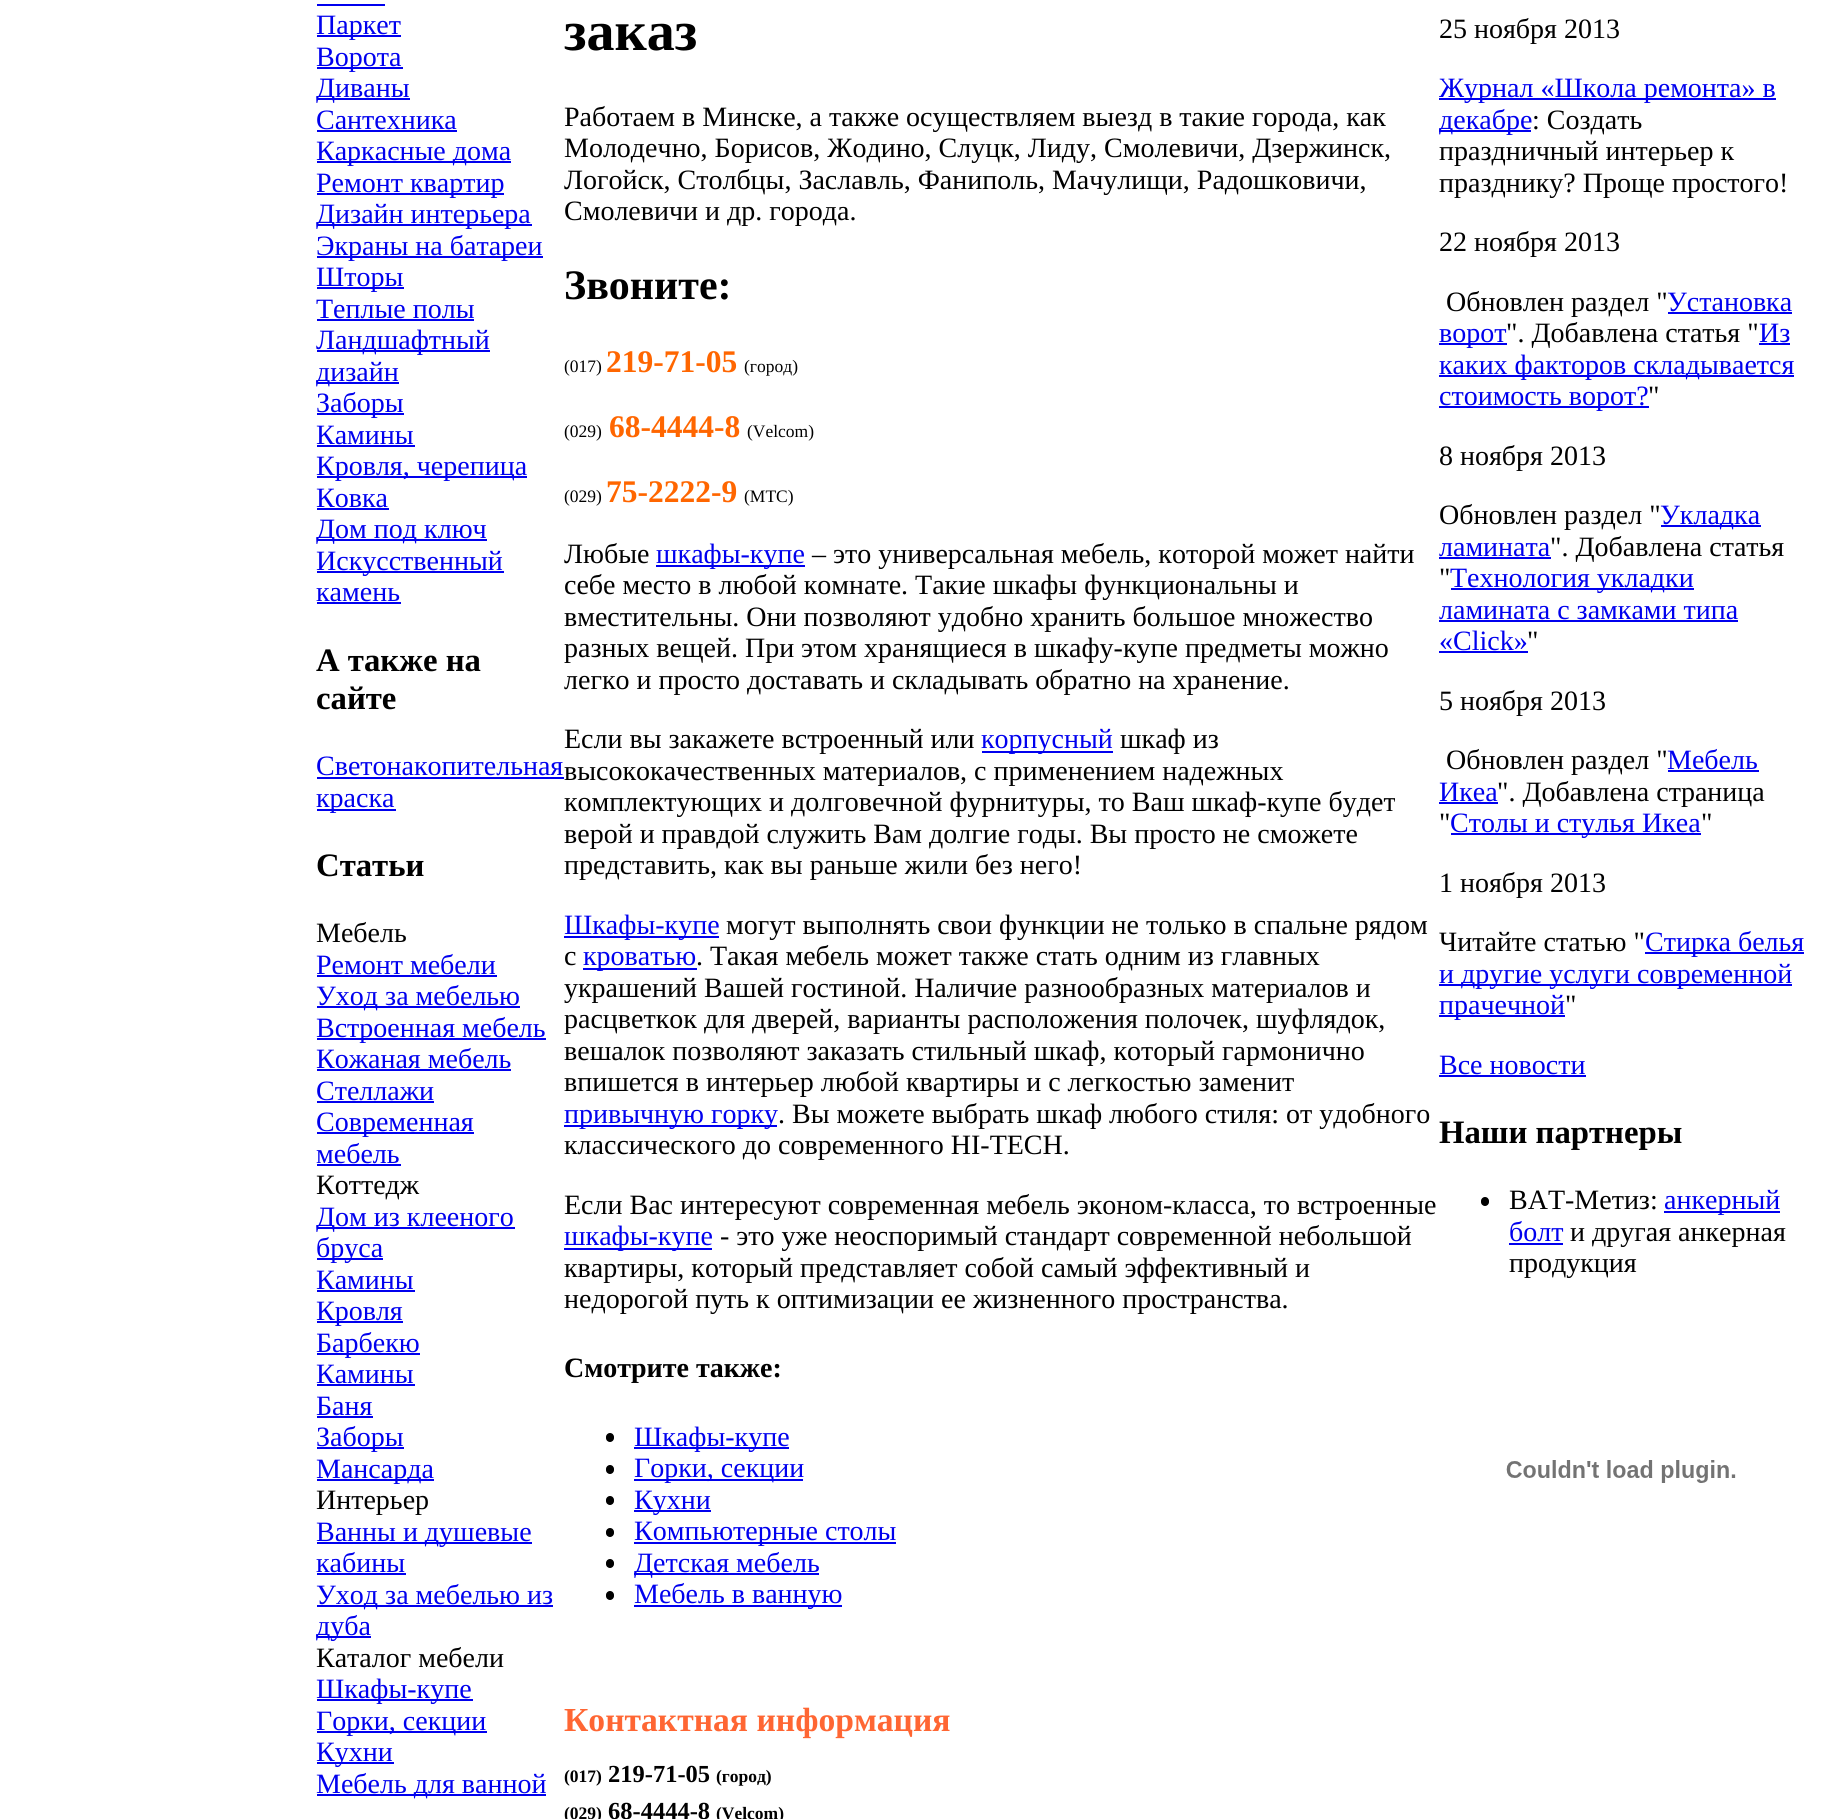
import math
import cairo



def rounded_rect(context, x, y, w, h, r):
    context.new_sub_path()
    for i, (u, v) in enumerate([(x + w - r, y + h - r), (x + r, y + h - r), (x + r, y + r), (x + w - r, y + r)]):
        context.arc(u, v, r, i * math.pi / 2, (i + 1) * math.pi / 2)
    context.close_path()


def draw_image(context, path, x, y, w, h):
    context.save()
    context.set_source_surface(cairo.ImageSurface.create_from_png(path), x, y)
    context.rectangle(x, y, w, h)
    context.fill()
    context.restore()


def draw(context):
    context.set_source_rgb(1, 1, 1)
    context.paint()
    context.set_source_rgb(0, 0, 238 / 255)
    context.rectangle(317, 4, 68, 2)
    context.fill()
    context.rectangle(317, 35, 84, 2)
    context.fill()
    context.rectangle(317, 67, 86, 2)
    context.fill()
    context.rectangle(317, 98, 93, 2)
    context.fill()
    context.rectangle(317, 130, 140, 2)
    context.fill()
    context.rectangle(317, 161, 194, 2)
    context.fill()
    context.rectangle(317, 193, 187, 2)
    context.fill()
    context.rectangle(317, 224, 215, 2)
    context.fill()
    context.rectangle(317, 256, 226, 2)
    context.fill()
    context.rectangle(317, 287, 87, 2)
    context.fill()
    context.rectangle(317, 319, 157, 2)
    context.fill()
    context.rectangle(317, 350, 173, 2)
    context.fill()
    context.rectangle(317, 382, 82, 2)
    context.fill()
    context.rectangle(317, 413, 87, 2)
    context.fill()
    context.rectangle(317, 445, 98, 2)
    context.fill()
    context.rectangle(317, 476, 210, 2)
    context.fill()
    context.rectangle(317, 508, 72, 2)
    context.fill()
    context.rectangle(317, 539, 170, 2)
    context.fill()
    context.rectangle(317, 571, 187, 2)
    context.fill()
    context.rectangle(317, 602, 84, 2)
    context.fill()
    context.rectangle(317, 777, 247, 2)
    context.fill()
    context.rectangle(317, 809, 79, 2)
    context.fill()
    context.rectangle(317, 975, 180, 2)
    context.fill()
    context.rectangle(317, 1006, 203, 2)
    context.fill()
    context.rectangle(317, 1038, 229, 2)
    context.fill()
    context.rectangle(317, 1069, 194, 2)
    context.fill()
    context.rectangle(317, 1101, 117, 2)
    context.fill()
    context.rectangle(317, 1132, 157, 2)
    context.fill()
    context.rectangle(317, 1164, 84, 2)
    context.fill()
    context.rectangle(317, 1227, 198, 2)
    context.fill()
    context.rectangle(317, 1258, 66, 2)
    context.fill()
    context.rectangle(317, 1290, 98, 2)
    context.fill()
    context.rectangle(317, 1321, 86, 2)
    context.fill()
    context.rectangle(317, 1353, 103, 2)
    context.fill()
    context.rectangle(317, 1384, 98, 2)
    context.fill()
    context.rectangle(317, 1416, 56, 2)
    context.fill()
    context.rectangle(317, 1447, 87, 2)
    context.fill()
    context.rectangle(317, 1479, 117, 2)
    context.fill()
    context.rectangle(317, 1542, 215, 2)
    context.fill()
    context.rectangle(317, 1573, 89, 2)
    context.fill()
    context.rectangle(317, 1605, 236, 2)
    context.fill()
    context.rectangle(317, 1636, 54, 2)
    context.fill()
    context.rectangle(317, 1699, 156, 2)
    context.fill()
    context.rectangle(317, 1731, 170, 2)
    context.fill()
    context.rectangle(317, 1762, 77, 2)
    context.fill()
    context.rectangle(317, 1794, 229, 2)
    context.fill()
    context.rectangle(656, 565, 149, 2)
    context.fill()
    context.rectangle(982, 751, 131, 2)
    context.fill()
    context.rectangle(564, 936, 155, 2)
    context.fill()
    context.rectangle(583, 968, 114, 2)
    context.fill()
    context.rectangle(564, 1125, 213, 2)
    context.fill()
    context.rectangle(564, 1248, 148, 2)
    context.fill()
    context.set_source_rgb(0, 0, 0)
    rounded_rect(context, 606, 1433, 8, 9, 4)
    context.fill()
    context.set_source_rgb(0, 0, 238 / 255)
    context.rectangle(634, 1447, 155, 2)
    context.fill()
    context.set_source_rgb(0, 0, 0)
    rounded_rect(context, 606, 1465, 8, 9, 4)
    context.fill()
    context.set_source_rgb(0, 0, 238 / 255)
    context.rectangle(634, 1479, 169, 2)
    context.fill()
    context.set_source_rgb(0, 0, 0)
    rounded_rect(context, 606, 1496, 8, 9, 4)
    context.fill()
    context.set_source_rgb(0, 0, 238 / 255)
    context.rectangle(634, 1510, 77, 2)
    context.fill()
    context.set_source_rgb(0, 0, 0)
    rounded_rect(context, 606, 1528, 8, 9, 4)
    context.fill()
    context.set_source_rgb(0, 0, 238 / 255)
    context.rectangle(634, 1542, 262, 2)
    context.fill()
    context.set_source_rgb(0, 0, 0)
    rounded_rect(context, 606, 1559, 8, 9, 4)
    context.fill()
    context.set_source_rgb(0, 0, 238 / 255)
    context.rectangle(634, 1573, 185, 2)
    context.fill()
    context.set_source_rgb(0, 0, 0)
    rounded_rect(context, 606, 1591, 8, 9, 4)
    context.fill()
    context.set_source_rgb(0, 0, 238 / 255)
    context.rectangle(634, 1605, 208, 2)
    context.fill()
    context.rectangle(1439, 98, 337, 2)
    context.fill()
    context.rectangle(1439, 130, 92, 2)
    context.fill()
    context.rectangle(1668, 312, 124, 2)
    context.fill()
    context.rectangle(1439, 343, 68, 2)
    context.fill()
    context.rectangle(1759, 343, 31, 2)
    context.fill()
    context.rectangle(1439, 375, 355, 2)
    context.fill()
    context.rectangle(1439, 406, 210, 2)
    context.fill()
    context.rectangle(1661, 525, 100, 2)
    context.fill()
    context.rectangle(1439, 557, 112, 2)
    context.fill()
    context.rectangle(1451, 588, 243, 2)
    context.fill()
    context.rectangle(1439, 620, 299, 2)
    context.fill()
    context.rectangle(1439, 651, 89, 2)
    context.fill()
    context.rectangle(1668, 770, 91, 2)
    context.fill()
    context.rectangle(1439, 802, 59, 2)
    context.fill()
    context.rectangle(1451, 833, 250, 2)
    context.fill()
    context.rectangle(1645, 952, 159, 2)
    context.fill()
    context.rectangle(1439, 984, 353, 2)
    context.fill()
    context.rectangle(1439, 1015, 126, 2)
    context.fill()
    context.rectangle(1439, 1075, 147, 2)
    context.fill()
    context.set_source_rgb(0, 0, 0)
    rounded_rect(context, 1481, 1197, 8, 9, 4)
    context.fill()
    context.set_source_rgb(0, 0, 238 / 255)
    context.rectangle(1664, 1211, 116, 2)
    context.fill()
    context.rectangle(1509, 1243, 54, 2)
    context.fill()
    draw_image(context, "images/1.png", 1506, 1460, 230, 23)
    context.select_font_face("Liberation Serif")
    context.set_font_size(28)
    context.move_to(316, 34)
    context.show_text("Паркет")
    context.move_to(316, 66)
    context.show_text("Ворота")
    context.move_to(316, 97)
    context.show_text("Диваны")
    context.move_to(316, 129)
    context.show_text("Сантехника")
    context.move_to(316, 160)
    context.show_text("Каркасные дома")
    context.move_to(316, 192)
    context.show_text("Ремонт квартир")
    context.move_to(316, 223)
    context.show_text("Дизайн интерьера")
    context.move_to(316, 255)
    context.show_text("Экраны на батареи")
    context.move_to(316, 286)
    context.show_text("Шторы")
    context.move_to(316, 318)
    context.show_text("Теплые полы")
    context.move_to(316, 349)
    context.show_text("Ландшафтный")
    context.move_to(316, 381)
    context.show_text("дизайн")
    context.move_to(316, 412)
    context.show_text("Заборы")
    context.move_to(316, 444)
    context.show_text("Камины")
    context.move_to(316, 475)
    context.show_text("Кровля, черепица")
    context.move_to(316, 507)
    context.show_text("Ковка")
    context.move_to(316, 538)
    context.show_text("Дом под ключ")
    context.move_to(316, 570)
    context.show_text("Искусственный")
    context.move_to(316, 601)
    context.show_text("камень")
    context.select_font_face("Liberation Serif", cairo.FontSlant.NORMAL, cairo.FontWeight.BOLD)
    context.set_font_size(32.75)
    context.set_source_rgb(0, 0, 0)
    context.move_to(316, 671)
    context.show_text("А также на")
    context.move_to(316, 709)
    context.show_text("сайте")
    context.select_font_face("Liberation Serif")
    context.set_font_size(28)
    context.set_source_rgb(0, 0, 238 / 255)
    context.move_to(316, 775)
    context.show_text("Светонакопительная")
    context.move_to(316, 807)
    context.show_text("краска")
    context.select_font_face("Liberation Serif", cairo.FontSlant.NORMAL, cairo.FontWeight.BOLD)
    context.set_font_size(32.75)
    context.set_source_rgb(0, 0, 0)
    context.move_to(316, 876)
    context.show_text("Статьи")
    context.select_font_face("Liberation Serif")
    context.set_font_size(28)
    context.move_to(316, 942)
    context.show_text("Мебель")
    context.set_source_rgb(0, 0, 238 / 255)
    context.move_to(316, 974)
    context.show_text("Ремонт мебели")
    context.move_to(316, 1005)
    context.show_text("Уход за мебелью")
    context.move_to(316, 1037)
    context.show_text("Встроенная мебель")
    context.move_to(316, 1068)
    context.show_text("Кожаная мебель")
    context.move_to(316, 1100)
    context.show_text("Стеллажи")
    context.move_to(316, 1131)
    context.show_text("Современная")
    context.move_to(316, 1163)
    context.show_text("мебель")
    context.set_source_rgb(0, 0, 0)
    context.move_to(316, 1194)
    context.show_text("Коттедж")
    context.set_source_rgb(0, 0, 238 / 255)
    context.move_to(316, 1226)
    context.show_text("Дом из клееного")
    context.move_to(316, 1257)
    context.show_text("бруса")
    context.move_to(316, 1289)
    context.show_text("Камины")
    context.move_to(316, 1320)
    context.show_text("Кровля")
    context.move_to(316, 1352)
    context.show_text("Барбекю")
    context.move_to(316, 1383)
    context.show_text("Камины")
    context.move_to(316, 1415)
    context.show_text("Баня")
    context.move_to(316, 1446)
    context.show_text("Заборы")
    context.move_to(316, 1478)
    context.show_text("Мансарда")
    context.set_source_rgb(0, 0, 0)
    context.move_to(316, 1509)
    context.show_text("Интерьер")
    context.set_source_rgb(0, 0, 238 / 255)
    context.move_to(316, 1541)
    context.show_text("Ванны и душевые")
    context.move_to(316, 1572)
    context.show_text("кабины")
    context.move_to(316, 1604)
    context.show_text("Уход за мебелью из")
    context.move_to(316, 1635)
    context.show_text("дуба")
    context.set_source_rgb(0, 0, 0)
    context.move_to(316, 1667)
    context.show_text("Каталог мебели")
    context.set_source_rgb(0, 0, 238 / 255)
    context.move_to(316, 1698)
    context.show_text("Шкафы-купе")
    context.move_to(316, 1730)
    context.show_text("Горки, секции")
    context.move_to(316, 1761)
    context.show_text("Кухни")
    context.move_to(316, 1793)
    context.show_text("Мебель для ванной")
    context.select_font_face("Liberation Serif", cairo.FontSlant.NORMAL, cairo.FontWeight.BOLD)
    context.set_font_size(56)
    context.set_source_rgb(0, 0, 0)
    context.move_to(564, 50)
    context.show_text("заказ")
    context.select_font_face("Liberation Serif")
    context.set_font_size(28)
    context.move_to(564, 126)
    context.show_text("Работаем в Минске, а также осуществляем выезд в такие города, как")
    context.move_to(564, 157)
    context.show_text("Молодечно, Борисов, Жодино, Слуцк, Лиду, Смолевичи, Дзержинск,")
    context.move_to(564, 189)
    context.show_text("Логойск, Столбцы, Заславль, Фаниполь, Мачулищи, Радошковичи,")
    context.move_to(564, 220)
    context.show_text("Смолевичи и др. города.")
    context.select_font_face("Liberation Serif", cairo.FontSlant.NORMAL, cairo.FontWeight.BOLD)
    context.set_font_size(42)
    context.move_to(564, 299)
    context.show_text("Звоните:")
    context.select_font_face("Liberation Serif")
    context.set_font_size(17.5)
    context.move_to(564, 372)
    context.show_text("(017)")
    context.select_font_face("Liberation Serif", cairo.FontSlant.NORMAL, cairo.FontWeight.BOLD)
    context.set_font_size(31.5)
    context.set_source_rgb(1, 102 / 255, 0)
    context.move_to(606, 372)
    context.show_text("219-71-05")
    context.select_font_face("Liberation Serif")
    context.set_font_size(17.5)
    context.set_source_rgb(0, 0, 0)
    context.move_to(744, 372)
    context.show_text("(город)")
    context.move_to(564, 437)
    context.show_text("(029)")
    context.select_font_face("Liberation Serif", cairo.FontSlant.NORMAL, cairo.FontWeight.BOLD)
    context.set_font_size(31.5)
    context.set_source_rgb(1, 102 / 255, 0)
    context.move_to(609, 437)
    context.show_text("68-4444-8")
    context.select_font_face("Liberation Serif")
    context.set_font_size(17.5)
    context.set_source_rgb(0, 0, 0)
    context.move_to(747, 437)
    context.show_text("(Velcom)")
    context.move_to(564, 502)
    context.show_text("(029)")
    context.select_font_face("Liberation Serif", cairo.FontSlant.NORMAL, cairo.FontWeight.BOLD)
    context.set_font_size(31.5)
    context.set_source_rgb(1, 102 / 255, 0)
    context.move_to(606, 502)
    context.show_text("75-2222-9")
    context.select_font_face("Liberation Serif")
    context.set_font_size(17.5)
    context.set_source_rgb(0, 0, 0)
    context.move_to(744, 502)
    context.show_text("(МТС)")
    context.set_font_size(28)
    context.move_to(564, 563)
    context.show_text("Любые")
    context.set_source_rgb(0, 0, 238 / 255)
    context.move_to(656, 563)
    context.show_text("шкафы-купе")
    context.set_source_rgb(0, 0, 0)
    context.move_to(812, 563)
    context.show_text("– это универсальная мебель, которой может найти")
    context.move_to(564, 594)
    context.show_text("себе место в любой комнате. Такие шкафы функциональны и")
    context.move_to(564, 626)
    context.show_text("вместительны. Они позволяют удобно хранить большое множество")
    context.move_to(564, 657)
    context.show_text("разных вещей. При этом хранящиеся в шкафу-купе предметы можно")
    context.move_to(564, 689)
    context.show_text("легко и просто доставать и складывать обратно на хранение.")
    context.move_to(564, 748)
    context.show_text("Если вы закажете встроенный или")
    context.set_source_rgb(0, 0, 238 / 255)
    context.move_to(981, 748)
    context.show_text("корпусный")
    context.set_source_rgb(0, 0, 0)
    context.move_to(1120, 748)
    context.show_text("шкаф из")
    context.move_to(564, 780)
    context.show_text("высококачественных материалов, с применением надежных")
    context.move_to(564, 811)
    context.show_text("комплектующих и долговечной фурнитуры, то Ваш шкаф-купе будет")
    context.move_to(564, 843)
    context.show_text("верой и правдой служить Вам долгие годы. Вы просто не сможете")
    context.move_to(564, 874)
    context.show_text("представить, как вы раньше жили без него!")
    context.set_source_rgb(0, 0, 238 / 255)
    context.move_to(564, 934)
    context.show_text("Шкафы-купе")
    context.set_source_rgb(0, 0, 0)
    context.move_to(726, 934)
    context.show_text("могут выполнять свои функции не только в спальне рядом")
    context.move_to(564, 965)
    context.show_text("с")
    context.set_source_rgb(0, 0, 238 / 255)
    context.move_to(583, 965)
    context.show_text("кроватью")
    context.set_source_rgb(0, 0, 0)
    context.move_to(696, 965)
    context.show_text(". Такая мебель может также стать одним из главных")
    context.move_to(564, 997)
    context.show_text("украшений Вашей гостиной. Наличие разнообразных материалов и")
    context.move_to(564, 1028)
    context.show_text("расцветкок для дверей, варианты расположения полочек, шуфлядок,")
    context.move_to(564, 1060)
    context.show_text("вешалок позволяют заказать стильный шкаф, который гармонично")
    context.move_to(564, 1091)
    context.show_text("впишется в интерьер любой квартиры и с легкостью заменит")
    context.set_source_rgb(0, 0, 238 / 255)
    context.move_to(564, 1123)
    context.show_text("привычную горку")
    context.set_source_rgb(0, 0, 0)
    context.move_to(778, 1123)
    context.show_text(". Вы можете выбрать шкаф любого стиля: от удобного")
    context.move_to(564, 1154)
    context.show_text("классического до современного HI-TECH.")
    context.move_to(564, 1214)
    context.show_text("Если Вас интересуют современная мебель эконом-класса, то встроенные")
    context.set_source_rgb(0, 0, 238 / 255)
    context.move_to(564, 1245)
    context.show_text("шкафы-купе")
    context.set_source_rgb(0, 0, 0)
    context.move_to(720, 1245)
    context.show_text("- это уже неоспоримый стандарт современной небольшой")
    context.move_to(564, 1277)
    context.show_text("квартиры, который представляет собой самый эффективный и")
    context.move_to(564, 1308)
    context.show_text("недорогой путь к оптимизации ее жизненного пространства.")
    context.select_font_face("Liberation Serif", cairo.FontSlant.NORMAL, cairo.FontWeight.BOLD)
    context.move_to(564, 1377)
    context.show_text("Смотрите также:")
    context.select_font_face("Liberation Serif")
    context.set_source_rgb(0, 0, 238 / 255)
    context.move_to(634, 1446)
    context.show_text("Шкафы-купе")
    context.move_to(634, 1477)
    context.show_text("Горки, секции")
    context.move_to(634, 1509)
    context.show_text("Кухни")
    context.move_to(634, 1540)
    context.show_text("Компьютерные столы")
    context.move_to(634, 1572)
    context.show_text("Детская мебель")
    context.move_to(634, 1603)
    context.show_text("Мебель в ванную")
    context.select_font_face("Liberation Serif", cairo.FontSlant.NORMAL, cairo.FontWeight.BOLD)
    context.set_font_size(33.6)
    context.set_source_rgb(1, 102 / 255, 51 / 255)
    context.move_to(564, 1731)
    context.show_text("Контактная информация")
    context.set_font_size(17.5)
    context.set_source_rgb(0, 0, 0)
    context.move_to(564, 1782)
    context.show_text("(017)")
    context.set_font_size(24.5)
    context.move_to(608, 1782)
    context.show_text("219-71-05")
    context.set_font_size(17.5)
    context.move_to(716, 1782)
    context.show_text("(город)")
    context.move_to(564, 1819)
    context.show_text("(029)")
    context.set_font_size(24.5)
    context.move_to(608, 1819)
    context.show_text("68-4444-8")
    context.set_font_size(17.5)
    context.move_to(716, 1819)
    context.show_text("(Velcom)")
    context.select_font_face("Liberation Serif")
    context.set_font_size(28)
    context.move_to(1439, 38)
    context.show_text("25 ноября 2013")
    context.set_source_rgb(0, 0, 238 / 255)
    context.move_to(1439, 97)
    context.show_text("Журнал «Школа ремонта» в")
    context.move_to(1439, 129)
    context.show_text("декабре")
    context.set_source_rgb(0, 0, 0)
    context.move_to(1532, 129)
    context.show_text(": Создать")
    context.move_to(1439, 160)
    context.show_text("праздничный интерьер к")
    context.move_to(1439, 192)
    context.show_text("празднику? Проще простого!")
    context.move_to(1439, 251)
    context.show_text("22 ноября 2013")
    context.move_to(1446, 311)
    context.show_text("Обновлен раздел \"")
    context.set_source_rgb(0, 0, 238 / 255)
    context.move_to(1667, 311)
    context.show_text("Установка")
    context.move_to(1439, 342)
    context.show_text("ворот")
    context.set_source_rgb(0, 0, 0)
    context.move_to(1506, 342)
    context.show_text("\". Добавлена статья \"")
    context.set_source_rgb(0, 0, 238 / 255)
    context.move_to(1759, 342)
    context.show_text("Из")
    context.move_to(1439, 374)
    context.show_text("каких факторов складывается")
    context.move_to(1439, 405)
    context.show_text("стоимость ворот?")
    context.set_source_rgb(0, 0, 0)
    context.move_to(1648, 405)
    context.show_text("\"")
    context.move_to(1439, 465)
    context.show_text("8 ноября 2013")
    context.move_to(1439, 524)
    context.show_text("Обновлен раздел \"")
    context.set_source_rgb(0, 0, 238 / 255)
    context.move_to(1660, 524)
    context.show_text("Укладка")
    context.move_to(1439, 556)
    context.show_text("ламината")
    context.set_source_rgb(0, 0, 0)
    context.move_to(1550, 556)
    context.show_text("\". Добавлена статья")
    context.move_to(1439, 587)
    context.show_text("\"")
    context.set_source_rgb(0, 0, 238 / 255)
    context.move_to(1450, 587)
    context.show_text("Технология укладки")
    context.move_to(1439, 619)
    context.show_text("ламината с замками типа")
    context.move_to(1439, 650)
    context.show_text("«Click»")
    context.set_source_rgb(0, 0, 0)
    context.move_to(1527, 650)
    context.show_text("\"")
    context.move_to(1439, 710)
    context.show_text("5 ноября 2013")
    context.move_to(1446, 769)
    context.show_text("Обновлен раздел \"")
    context.set_source_rgb(0, 0, 238 / 255)
    context.move_to(1667, 769)
    context.show_text("Мебель")
    context.move_to(1439, 801)
    context.show_text("Икеа")
    context.set_source_rgb(0, 0, 0)
    context.move_to(1497, 801)
    context.show_text("\". Добавлена страница")
    context.move_to(1439, 832)
    context.show_text("\"")
    context.set_source_rgb(0, 0, 238 / 255)
    context.move_to(1450, 832)
    context.show_text("Столы и стулья Икеа")
    context.set_source_rgb(0, 0, 0)
    context.move_to(1701, 832)
    context.show_text("\"")
    context.move_to(1439, 892)
    context.show_text("1 ноября 2013")
    context.move_to(1439, 951)
    context.show_text("Читайте статью \"")
    context.set_source_rgb(0, 0, 238 / 255)
    context.move_to(1645, 951)
    context.show_text("Стирка белья")
    context.move_to(1439, 983)
    context.show_text("и другие услуги современной")
    context.move_to(1439, 1014)
    context.show_text("прачечной")
    context.set_source_rgb(0, 0, 0)
    context.move_to(1565, 1014)
    context.show_text("\"")
    context.set_source_rgb(0, 0, 238 / 255)
    context.move_to(1439, 1074)
    context.show_text("Все новости")
    context.select_font_face("Liberation Serif", cairo.FontSlant.NORMAL, cairo.FontWeight.BOLD)
    context.set_font_size(32.75)
    context.set_source_rgb(0, 0, 0)
    context.move_to(1439, 1143)
    context.show_text("Наши партнеры")
    context.select_font_face("Liberation Serif")
    context.set_font_size(28)
    context.move_to(1509, 1209)
    context.show_text("ВАТ-Метиз:")
    context.set_source_rgb(0, 0, 238 / 255)
    context.move_to(1664, 1209)
    context.show_text("анкерный")
    context.move_to(1509, 1241)
    context.show_text("болт")
    context.set_source_rgb(0, 0, 0)
    context.move_to(1570, 1241)
    context.show_text("и другая анкерная")
    context.move_to(1509, 1272)
    context.show_text("продукция")


surface = cairo.ImageSurface(cairo.Format.RGB24, 1823, 1819)
context = cairo.Context(surface)
options = cairo.FontOptions()
options.set_hint_metrics(cairo.HintMetrics.OFF)
options.set_hint_style(cairo.HintStyle.NONE)
context.set_font_options(options)
context.set_miter_limit(4)
draw(context)
surface.write_to_png("out.png")
